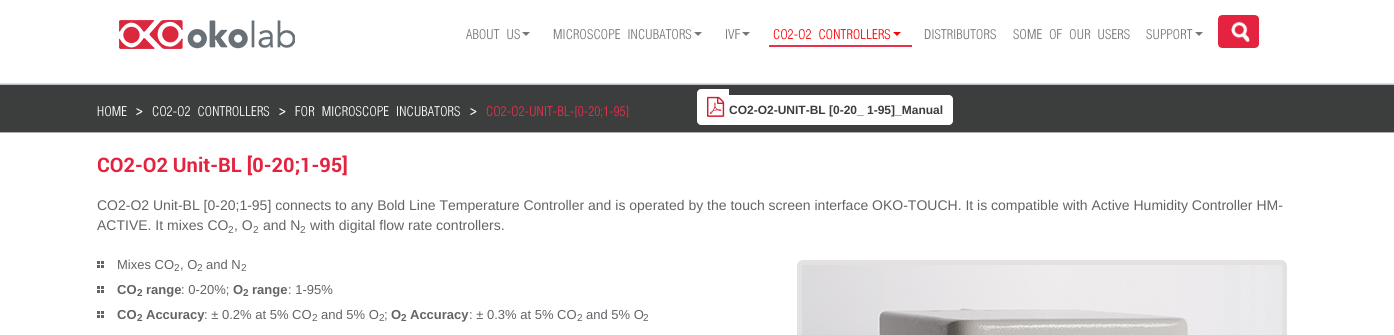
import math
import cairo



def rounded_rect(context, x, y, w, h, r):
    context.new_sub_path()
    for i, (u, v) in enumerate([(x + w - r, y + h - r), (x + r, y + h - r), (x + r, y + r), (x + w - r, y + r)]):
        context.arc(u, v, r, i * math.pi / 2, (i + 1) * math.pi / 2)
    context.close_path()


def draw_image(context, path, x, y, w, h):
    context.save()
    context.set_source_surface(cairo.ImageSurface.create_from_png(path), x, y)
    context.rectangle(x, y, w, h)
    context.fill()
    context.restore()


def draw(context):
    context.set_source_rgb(1, 1, 1)
    context.paint()
    draw_image(context, "images/1.png", 119, 20, 176, 29)
    context.set_source_rgb(119 / 255, 119 / 255, 119 / 255)
    context.new_path()
    context.move_to(522, 32)
    context.line_to(530, 32)
    context.line_to(526, 36)
    context.close_path()
    context.fill()
    context.new_path()
    context.move_to(694, 32)
    context.line_to(702, 32)
    context.line_to(698, 36)
    context.close_path()
    context.fill()
    context.new_path()
    context.move_to(742, 32)
    context.line_to(750, 32)
    context.line_to(746, 36)
    context.close_path()
    context.fill()
    context.set_source_rgb(233 / 255, 48 / 255, 77 / 255)
    context.rectangle(769, 45, 143, 2)
    context.fill()
    context.set_source_rgb(1, 0, 0)
    context.new_path()
    context.move_to(893, 32)
    context.line_to(901, 32)
    context.line_to(897, 36)
    context.close_path()
    context.fill()
    context.set_source_rgb(119 / 255, 119 / 255, 119 / 255)
    context.new_path()
    context.move_to(1195, 32)
    context.line_to(1203, 32)
    context.line_to(1199, 36)
    context.close_path()
    context.fill()
    draw_image(context, "images/2.png", 1218, 15, 41, 33)
    context.set_source_rgb(225 / 255, 224 / 255, 225 / 255)
    context.rectangle(0, 83, 1394, 1)
    context.fill()
    context.set_source_rgb(191 / 255, 189 / 255, 199 / 255)
    context.rectangle(0, 84, 1394, 1)
    context.fill()
    context.set_source_rgb(60 / 255, 61 / 255, 61 / 255)
    context.rectangle(0, 85, 1394, 47)
    context.fill()
    draw_image(context, "images/3.png", 136, 108, 7, 8)
    draw_image(context, "images/3.png", 279, 108, 7, 8)
    draw_image(context, "images/3.png", 470, 108, 7, 8)
    context.set_source_rgb(1, 1, 1)
    context.new_path()
    context.move_to(701, 89)
    context.line_to(729, 89)
    context.line_to(729, 125)
    context.line_to(701, 125)
    context.curve_to(699, 125, 697, 123, 697, 121)
    context.line_to(697, 93)
    context.curve_to(697, 91, 699, 89, 701, 89)
    context.close_path()
    context.fill()
    context.new_path()
    context.move_to(729, 95)
    context.line_to(949, 95)
    context.curve_to(951, 95, 953, 97, 953, 99)
    context.line_to(953, 121)
    context.curve_to(953, 123, 951, 125, 949, 125)
    context.line_to(729, 125)
    context.close_path()
    context.fill()
    draw_image(context, "images/4.png", 707, 96, 18, 21)
    context.set_source_rgb(172 / 255, 174 / 255, 174 / 255)
    context.rectangle(0, 132, 1394, 1)
    context.fill()
    draw_image(context, "images/5.png", 97, 261, 7, 7)
    draw_image(context, "images/5.png", 97, 286, 7, 7)
    draw_image(context, "images/5.png", 97, 311, 7, 7)
    rounded_rect(context, 799.5, 262.5, 485, 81, 3.5)
    context.set_source_rgb(227 / 255, 225 / 255, 225 / 255)
    context.set_line_width(5)
    context.stroke()
    draw_image(context, "images/6.png", 802, 265, 480, 70)
    context.select_font_face("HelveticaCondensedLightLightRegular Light")
    context.set_font_size(15)
    context.set_source_rgb(119 / 255, 119 / 255, 119 / 255)
    context.move_to(466, 39)
    context.show_text("ABOUT US")
    context.move_to(553, 39)
    context.show_text("MICROSCOPE INCUBATORS")
    context.move_to(725, 39)
    context.show_text("IVF")
    context.set_source_rgb(1, 0, 0)
    context.move_to(773, 39)
    context.show_text("CO2-O2 CONTROLLERS")
    context.set_source_rgb(119 / 255, 119 / 255, 119 / 255)
    context.move_to(924, 39)
    context.show_text("DISTRIBUTORS")
    context.move_to(1013, 39)
    context.show_text("SOME OF OUR USERS")
    context.move_to(1146, 39)
    context.show_text("SUPPORT")
    context.set_source_rgb(1, 1, 1)
    context.move_to(97, 116)
    context.show_text("HOME")
    context.move_to(152, 116)
    context.show_text("CO2-O2 CONTROLLERS")
    context.move_to(295, 116)
    context.show_text("FOR MICROSCOPE INCUBATORS")
    context.set_source_rgb(233 / 255, 48 / 255, 77 / 255)
    context.move_to(486, 116)
    context.show_text("CO2-O2-UNIT-BL-[0-20;1-95]")
    context.select_font_face("Liberation Sans", cairo.FontSlant.NORMAL, cairo.FontWeight.BOLD)
    context.set_font_size(12)
    context.set_source_rgb(60 / 255, 61 / 255, 61 / 255)
    context.move_to(729, 114)
    context.show_text("CO2-O2-UNIT-BL [0-20_ 1-95]_Manual")
    context.select_font_face("Roboto", cairo.FontSlant.NORMAL, cairo.FontWeight.BOLD)
    context.set_font_size(20)
    context.set_source_rgb(228 / 255, 35 / 255, 64 / 255)
    context.move_to(97, 172)
    context.show_text("CO2-O2 Unit-BL [0-20;1-95]")
    context.select_font_face("Liberation Sans")
    context.set_font_size(14)
    context.set_source_rgb(97 / 255, 100 / 255, 103 / 255)
    context.move_to(97, 210)
    context.show_text("CO2-O2 Unit-BL [0-20;1-95] connects to any Bold Line Temperature Controller and is operated by the touch screen interface OKO-TOUCH. It is compatible with Active Humidity Controller HM-")
    context.move_to(97, 230)
    context.show_text("ACTIVE. It mixes CO")
    context.set_font_size(10)
    context.move_to(228, 233)
    context.show_text("2")
    context.set_font_size(14)
    context.move_to(234, 230)
    context.show_text(", O")
    context.set_font_size(10)
    context.move_to(253, 233)
    context.show_text("2")
    context.set_font_size(14)
    context.move_to(263, 230)
    context.show_text("and N")
    context.set_font_size(10)
    context.move_to(300, 233)
    context.show_text("2")
    context.set_font_size(14)
    context.move_to(310, 230)
    context.show_text("with digital flow rate controllers.")
    context.set_font_size(13)
    context.move_to(117, 269)
    context.show_text("Mixes CO")
    context.set_font_size(10)
    context.move_to(174, 271)
    context.show_text("2")
    context.set_font_size(13)
    context.move_to(180, 269)
    context.show_text(", O")
    context.set_font_size(10)
    context.move_to(197, 271)
    context.show_text("2")
    context.set_font_size(13)
    context.move_to(206, 269)
    context.show_text("and N")
    context.set_font_size(10)
    context.move_to(241, 271)
    context.show_text("2")
    context.select_font_face("Liberation Sans", cairo.FontSlant.NORMAL, cairo.FontWeight.BOLD)
    context.set_font_size(13)
    context.move_to(117, 294)
    context.show_text("CO")
    context.set_font_size(10)
    context.move_to(137, 296)
    context.show_text("2")
    context.set_font_size(13)
    context.move_to(146, 294)
    context.show_text("range")
    context.select_font_face("Liberation Sans")
    context.move_to(181, 294)
    context.show_text(": 0-20%;")
    context.select_font_face("Liberation Sans", cairo.FontSlant.NORMAL, cairo.FontWeight.BOLD)
    context.move_to(233, 294)
    context.show_text("O")
    context.set_font_size(10)
    context.move_to(243, 296)
    context.show_text("2")
    context.set_font_size(13)
    context.move_to(252, 294)
    context.show_text("range")
    context.select_font_face("Liberation Sans")
    context.move_to(288, 294)
    context.show_text(": 1-95%")
    context.select_font_face("Liberation Sans", cairo.FontSlant.NORMAL, cairo.FontWeight.BOLD)
    context.move_to(117, 319)
    context.show_text("CO")
    context.set_font_size(10)
    context.move_to(137, 321)
    context.show_text("2")
    context.set_font_size(13)
    context.move_to(146, 319)
    context.show_text("Accuracy")
    context.select_font_face("Liberation Sans")
    context.move_to(204, 319)
    context.show_text(": ± 0.2% at 5% CO")
    context.set_font_size(10)
    context.move_to(312, 321)
    context.show_text("2")
    context.set_font_size(13)
    context.move_to(321, 319)
    context.show_text("and 5% O")
    context.set_font_size(10)
    context.move_to(379, 321)
    context.show_text("2")
    context.set_font_size(13)
    context.move_to(384, 319)
    context.show_text(";")
    context.select_font_face("Liberation Sans", cairo.FontSlant.NORMAL, cairo.FontWeight.BOLD)
    context.move_to(391, 319)
    context.show_text("O")
    context.set_font_size(10)
    context.move_to(401, 321)
    context.show_text("2")
    context.set_font_size(13)
    context.move_to(410, 319)
    context.show_text("Accuracy")
    context.select_font_face("Liberation Sans")
    context.move_to(469, 319)
    context.show_text(": ± 0.3% at 5% CO")
    context.set_font_size(10)
    context.move_to(577, 321)
    context.show_text("2")
    context.set_font_size(13)
    context.move_to(586, 319)
    context.show_text("and 5% O")
    context.set_font_size(10)
    context.move_to(643, 321)
    context.show_text("2")


surface = cairo.ImageSurface(cairo.Format.RGB24, 1394, 335)
context = cairo.Context(surface)
options = cairo.FontOptions()
options.set_hint_metrics(cairo.HintMetrics.OFF)
options.set_hint_style(cairo.HintStyle.NONE)
context.set_font_options(options)
context.set_miter_limit(4)
draw(context)
surface.write_to_png("out.png")
